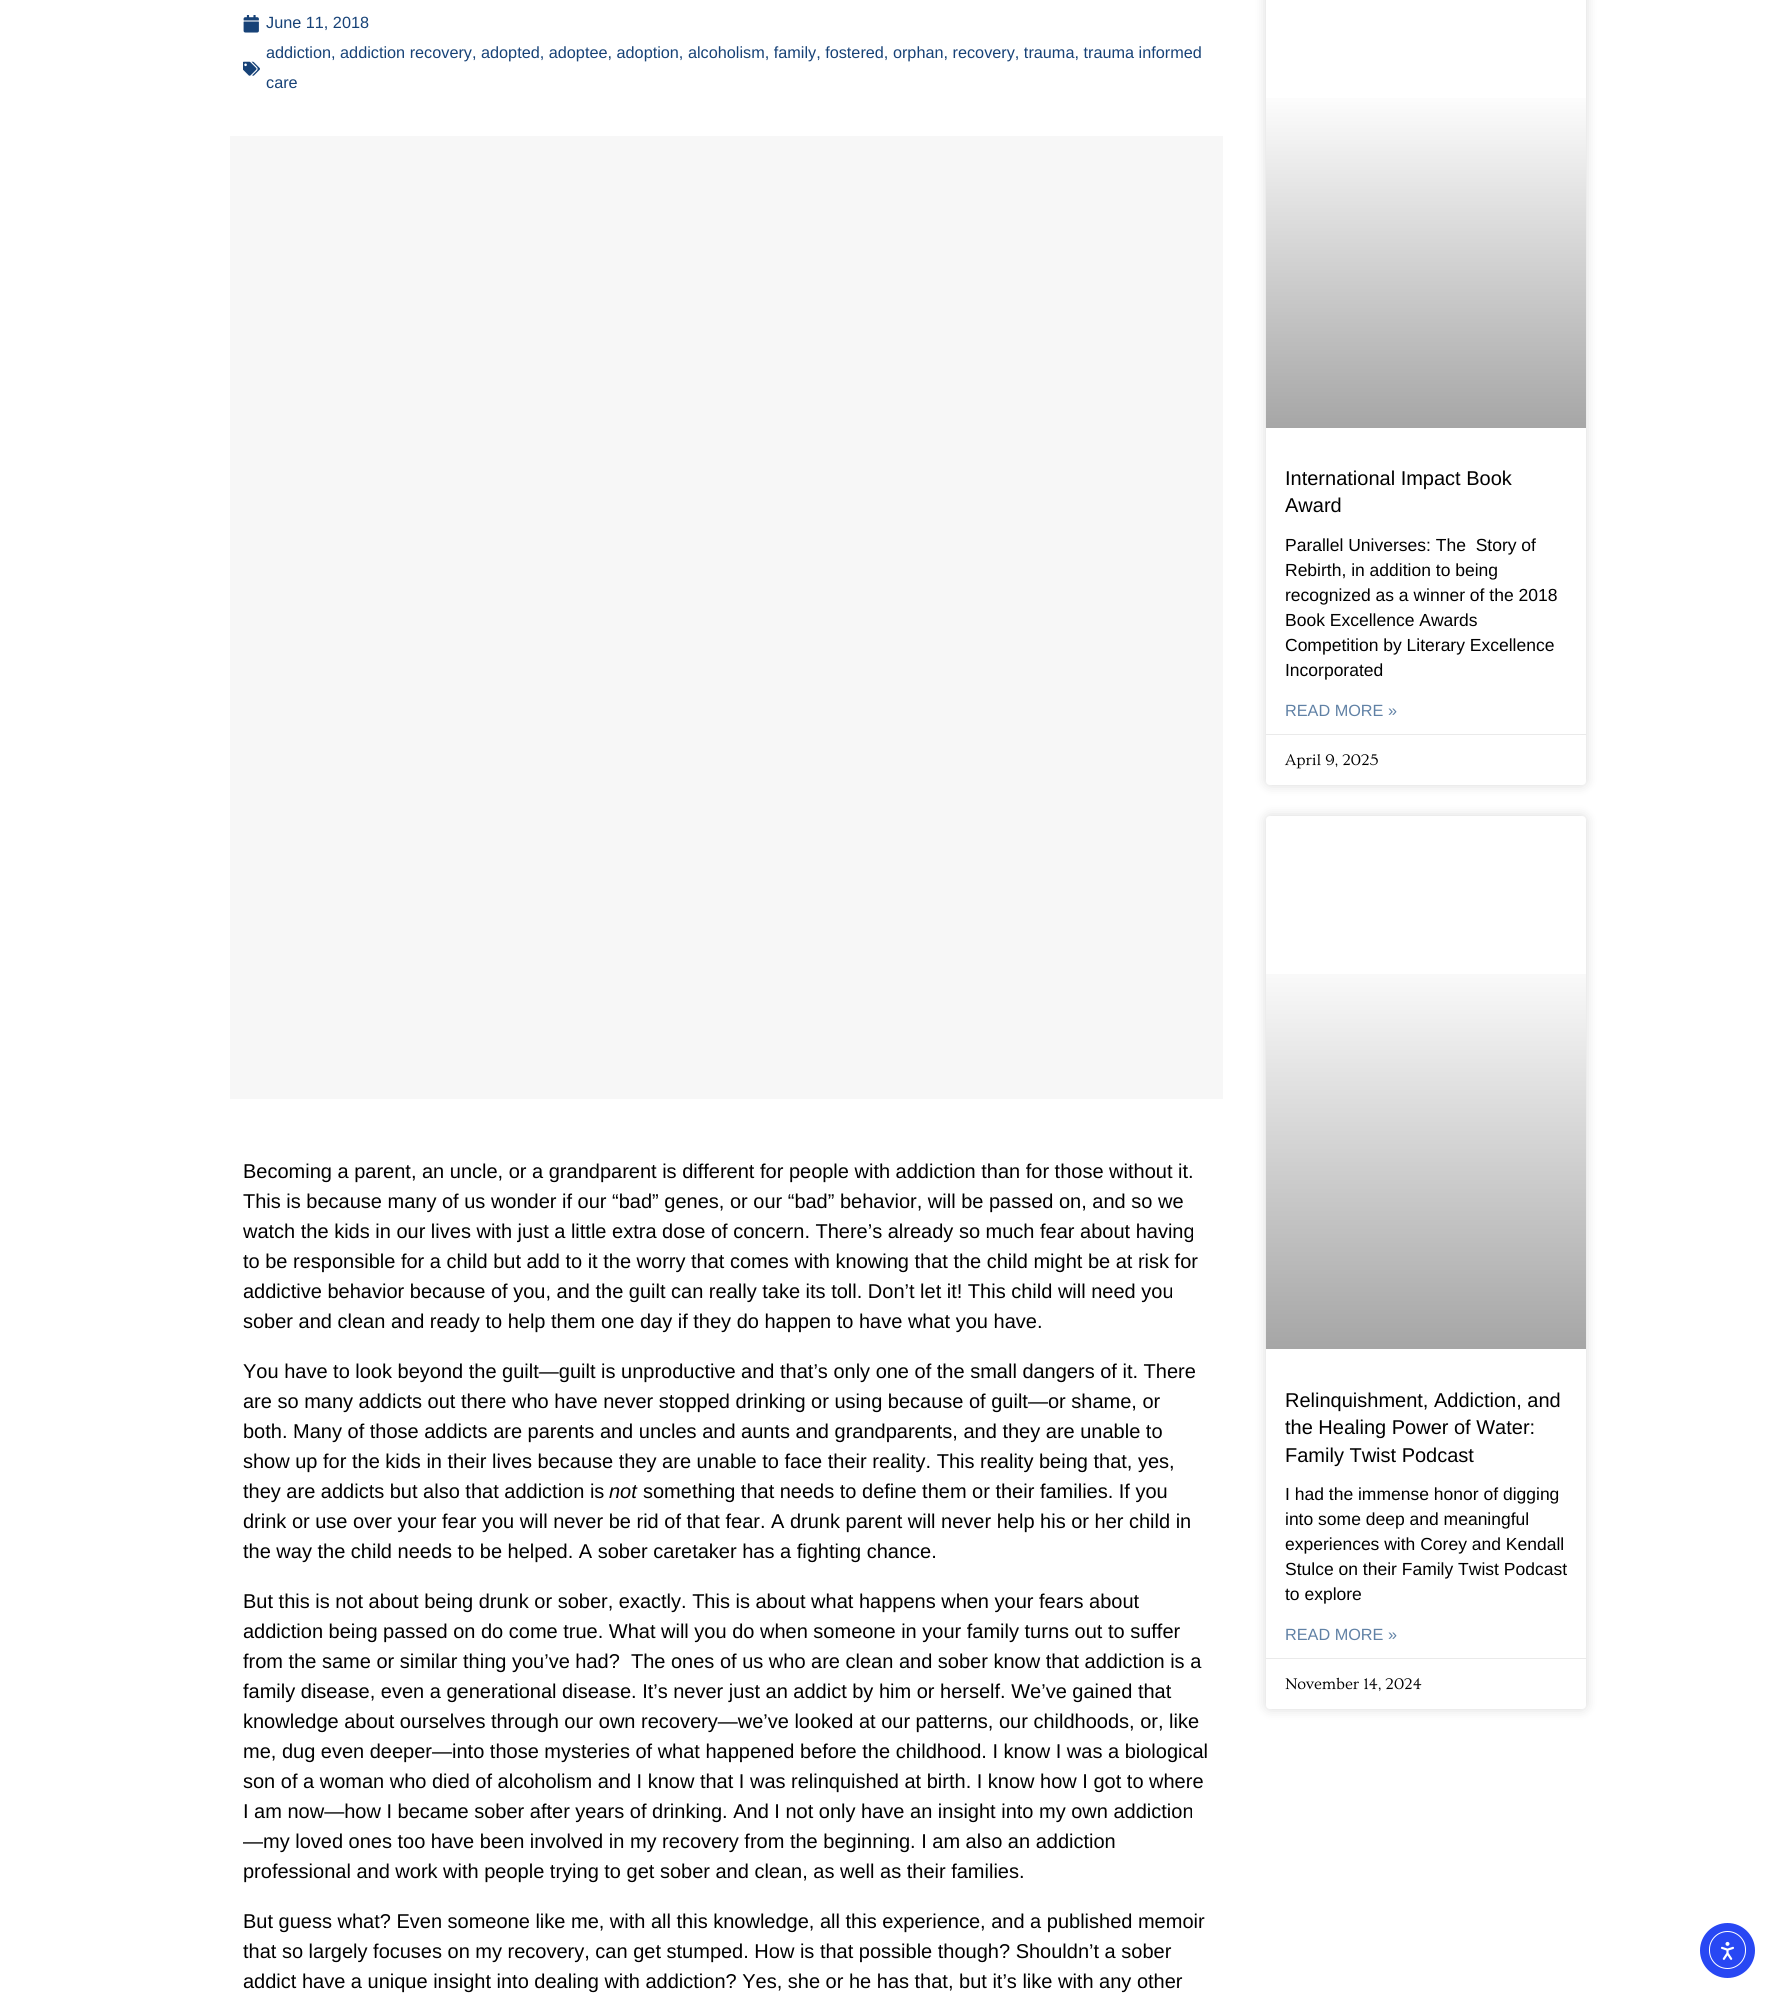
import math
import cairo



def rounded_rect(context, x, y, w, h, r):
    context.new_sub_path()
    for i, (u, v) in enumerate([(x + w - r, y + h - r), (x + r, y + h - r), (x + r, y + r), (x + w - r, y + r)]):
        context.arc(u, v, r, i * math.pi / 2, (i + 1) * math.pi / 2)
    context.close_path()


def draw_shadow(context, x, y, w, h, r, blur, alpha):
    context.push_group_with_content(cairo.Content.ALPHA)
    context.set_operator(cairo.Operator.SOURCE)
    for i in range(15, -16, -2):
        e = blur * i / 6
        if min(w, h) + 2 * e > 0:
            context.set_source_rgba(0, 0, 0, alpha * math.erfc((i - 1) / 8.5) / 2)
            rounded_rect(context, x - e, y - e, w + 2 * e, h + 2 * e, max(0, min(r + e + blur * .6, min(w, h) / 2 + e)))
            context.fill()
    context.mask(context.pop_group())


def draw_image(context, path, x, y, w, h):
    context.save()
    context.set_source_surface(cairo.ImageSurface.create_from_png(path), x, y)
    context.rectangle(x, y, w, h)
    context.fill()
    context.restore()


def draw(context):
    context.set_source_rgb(1, 1, 1)
    context.paint()
    draw_image(context, "images/1.png", 243, 15, 16, 18)
    draw_image(context, "images/2.png", 243, 61, 17, 15)
    context.set_source_rgb(247 / 255, 247 / 255, 247 / 255)
    context.rectangle(230, 136, 993, 963)
    context.fill()
    context.set_source_rgb(0, 0, 0)
    draw_shadow(context, 1266, -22, 320, 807, 4, 6, 0.15)
    context.set_source_rgb(1, 1, 1)
    rounded_rect(context, 1266, -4, 320, 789, 4)
    context.fill()
    gradient = cairo.LinearGradient(1426, 428, 1426, -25)
    gradient.add_color_stop_rgba(0, 166 / 255, 166 / 255, 166 / 255, 1)
    gradient.add_color_stop_rgba(0.75, 1, 1, 1, 1)
    context.set_source(gradient)
    context.rectangle(1266, 98, 320, 330)
    context.fill()
    context.set_source_rgb(234 / 255, 234 / 255, 234 / 255)
    context.rectangle(1266, 734, 320, 1)
    context.fill()
    context.set_source_rgb(0, 0, 0)
    draw_shadow(context, 1266, 816, 320, 893, 4, 6, 0.15)
    context.set_source_rgb(1, 1, 1)
    rounded_rect(context, 1266, 816, 320, 893, 4)
    context.fill()
    gradient = cairo.LinearGradient(1426, 1349, 1426, 816)
    gradient.add_color_stop_rgba(0, 0, 0, 0, 0.35)
    gradient.add_color_stop_rgba(0.75, 0, 0, 0, 0)
    context.set_source(gradient)
    context.rectangle(1266, 974, 320, 375)
    context.fill()
    context.set_source_rgb(234 / 255, 234 / 255, 234 / 255)
    context.rectangle(1266, 1658, 320, 1)
    context.fill()
    context.set_source_rgb(40 / 255, 71 / 255, 243 / 255)
    context.arc(1727.5, 1950.5, 27.5, 0, 2 * math.pi)
    context.fill()
    rounded_rect(context, 1709.5, 1931.5, 36, 37, 18)
    context.set_source_rgb(1, 1, 1)
    context.set_line_width(1)
    context.stroke()
    draw_image(context, "images/3.png", 1721, 1941, 13, 19)
    context.select_font_face("Liberation Sans")
    context.set_font_size(16.25)
    context.set_source_rgb(23 / 255, 66 / 255, 119 / 255)
    context.move_to(266, 28)
    context.show_text("June 11, 2018")
    context.move_to(266, 58)
    context.show_text("addiction, addiction recovery, adopted, adoptee, adoption, alcoholism, family, fostered, orphan, recovery, trauma, trauma informed")
    context.move_to(266, 88)
    context.show_text("care")
    context.set_font_size(20)
    context.set_source_rgb(0, 0, 0)
    context.move_to(243, 1178)
    context.show_text("Becoming a parent, an uncle, or a grandparent is different for people with addiction than for those without it.")
    context.move_to(243, 1208)
    context.show_text("This is because many of us wonder if our “bad” genes, or our “bad” behavior, will be passed on, and so we")
    context.move_to(243, 1238)
    context.show_text("watch the kids in our lives with just a little extra dose of concern. There’s already so much fear about having")
    context.move_to(243, 1268)
    context.show_text("to be responsible for a child but add to it the worry that comes with knowing that the child might be at risk for")
    context.move_to(243, 1298)
    context.show_text("addictive behavior because of you, and the guilt can really take its toll. Don’t let it! This child will need you")
    context.move_to(243, 1328)
    context.show_text("sober and clean and ready to help them one day if they do happen to have what you have.")
    context.move_to(243, 1378)
    context.show_text("You have to look beyond the guilt—guilt is unproductive and that’s only one of the small dangers of it. There")
    context.move_to(243, 1408)
    context.show_text("are so many addicts out there who have never stopped drinking or using because of guilt—or shame, or")
    context.move_to(243, 1438)
    context.show_text("both. Many of those addicts are parents and uncles and aunts and grandparents, and they are unable to")
    context.move_to(243, 1468)
    context.show_text("show up for the kids in their lives because they are unable to face their reality. This reality being that, yes,")
    context.move_to(243, 1498)
    context.show_text("they are addicts but also that addiction is")
    context.select_font_face("Liberation Sans", cairo.FontSlant.ITALIC)
    context.move_to(609, 1498)
    context.show_text("not")
    context.select_font_face("Liberation Sans")
    context.move_to(643, 1498)
    context.show_text("something that needs to define them or their families. If you")
    context.move_to(243, 1528)
    context.show_text("drink or use over your fear you will never be rid of that fear. A drunk parent will never help his or her child in")
    context.move_to(243, 1558)
    context.show_text("the way the child needs to be helped. A sober caretaker has a fighting chance.")
    context.move_to(243, 1608)
    context.show_text("But this is not about being drunk or sober, exactly. This is about what happens when your fears about")
    context.move_to(243, 1638)
    context.show_text("addiction being passed on do come true. What will you do when someone in your family turns out to suffer")
    context.move_to(243, 1668)
    context.show_text("from the same or similar thing you’ve had?  The ones of us who are clean and sober know that addiction is a")
    context.move_to(243, 1698)
    context.show_text("family disease, even a generational disease. It’s never just an addict by him or herself. We’ve gained that")
    context.move_to(243, 1728)
    context.show_text("knowledge about ourselves through our own recovery—we’ve looked at our patterns, our childhoods, or, like")
    context.move_to(243, 1758)
    context.show_text("me, dug even deeper—into those mysteries of what happened before the childhood. I know I was a biological")
    context.move_to(243, 1788)
    context.show_text("son of a woman who died of alcoholism and I know that I was relinquished at birth. I know how I got to where")
    context.move_to(243, 1818)
    context.show_text("I am now—how I became sober after years of drinking. And I not only have an insight into my own addiction")
    context.move_to(243, 1848)
    context.show_text("—my loved ones too have been involved in my recovery from the beginning. I am also an addiction")
    context.move_to(243, 1878)
    context.show_text("professional and work with people trying to get sober and clean, as well as their families.")
    context.move_to(243, 1928)
    context.show_text("But guess what? Even someone like me, with all this knowledge, all this experience, and a published memoir")
    context.move_to(243, 1958)
    context.show_text("that so largely focuses on my recovery, can get stumped. How is that possible though? Shouldn’t a sober")
    context.move_to(243, 1988)
    context.show_text("addict have a unique insight into dealing with addiction? Yes, she or he has that, but it’s like with any other")
    context.move_to(1285, 485)
    context.show_text("International Impact Book")
    context.move_to(1285, 512)
    context.show_text("Award")
    context.set_font_size(17.5)
    context.move_to(1285, 551)
    context.show_text("Parallel Universes: The  Story of")
    context.move_to(1285, 576)
    context.show_text("Rebirth, in addition to being")
    context.move_to(1285, 601)
    context.show_text("recognized as a winner of the 2018")
    context.move_to(1285, 626)
    context.show_text("Book Excellence Awards")
    context.move_to(1285, 651)
    context.show_text("Competition by Literary Excellence")
    context.move_to(1285, 676)
    context.show_text("Incorporated")
    context.set_font_size(16.25)
    context.set_source_rgb(96 / 255, 129 / 255, 165 / 255)
    context.move_to(1285, 716)
    context.show_text("READ MORE »")
    context.select_font_face("Ovo")
    context.set_source_rgb(0, 0, 0)
    context.move_to(1285, 765)
    context.show_text("April 9, 2025")
    context.select_font_face("Liberation Sans")
    context.set_font_size(20)
    context.move_to(1285, 1407)
    context.show_text("Relinquishment, Addiction, and")
    context.move_to(1285, 1434)
    context.show_text("the Healing Power of Water:")
    context.move_to(1285, 1462)
    context.show_text("Family Twist Podcast")
    context.set_font_size(17.5)
    context.move_to(1285, 1500)
    context.show_text("I had the immense honor of digging")
    context.move_to(1285, 1525)
    context.show_text("into some deep and meaningful")
    context.move_to(1285, 1550)
    context.show_text("experiences with Corey and Kendall")
    context.move_to(1285, 1575)
    context.show_text("Stulce on their Family Twist Podcast")
    context.move_to(1285, 1600)
    context.show_text("to explore")
    context.set_font_size(16.25)
    context.set_source_rgb(96 / 255, 129 / 255, 165 / 255)
    context.move_to(1285, 1640)
    context.show_text("READ MORE »")
    context.select_font_face("Ovo")
    context.set_source_rgb(0, 0, 0)
    context.move_to(1285, 1689)
    context.show_text("November 14, 2024")


surface = cairo.ImageSurface(cairo.Format.RGB24, 1784, 2007)
context = cairo.Context(surface)
options = cairo.FontOptions()
options.set_hint_metrics(cairo.HintMetrics.OFF)
options.set_hint_style(cairo.HintStyle.NONE)
context.set_font_options(options)
context.set_miter_limit(4)
draw(context)
surface.write_to_png("out.png")
